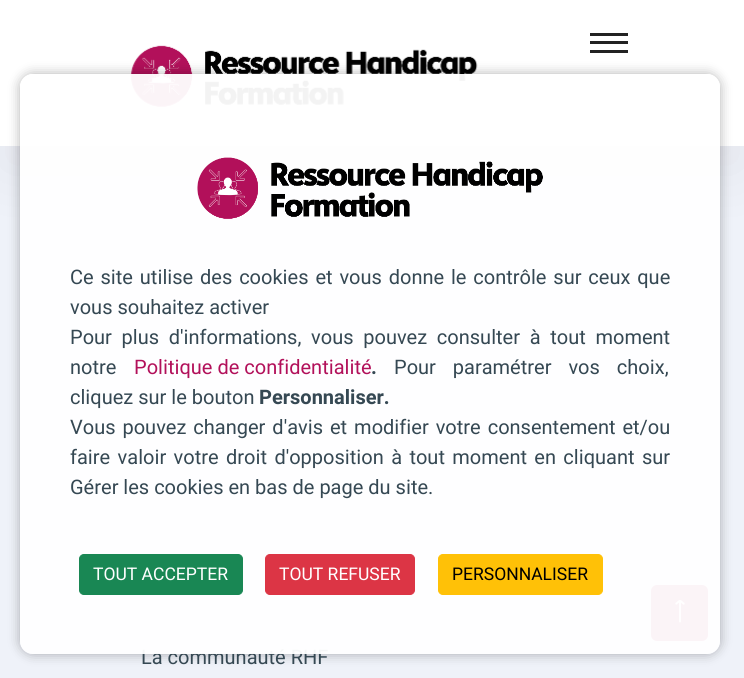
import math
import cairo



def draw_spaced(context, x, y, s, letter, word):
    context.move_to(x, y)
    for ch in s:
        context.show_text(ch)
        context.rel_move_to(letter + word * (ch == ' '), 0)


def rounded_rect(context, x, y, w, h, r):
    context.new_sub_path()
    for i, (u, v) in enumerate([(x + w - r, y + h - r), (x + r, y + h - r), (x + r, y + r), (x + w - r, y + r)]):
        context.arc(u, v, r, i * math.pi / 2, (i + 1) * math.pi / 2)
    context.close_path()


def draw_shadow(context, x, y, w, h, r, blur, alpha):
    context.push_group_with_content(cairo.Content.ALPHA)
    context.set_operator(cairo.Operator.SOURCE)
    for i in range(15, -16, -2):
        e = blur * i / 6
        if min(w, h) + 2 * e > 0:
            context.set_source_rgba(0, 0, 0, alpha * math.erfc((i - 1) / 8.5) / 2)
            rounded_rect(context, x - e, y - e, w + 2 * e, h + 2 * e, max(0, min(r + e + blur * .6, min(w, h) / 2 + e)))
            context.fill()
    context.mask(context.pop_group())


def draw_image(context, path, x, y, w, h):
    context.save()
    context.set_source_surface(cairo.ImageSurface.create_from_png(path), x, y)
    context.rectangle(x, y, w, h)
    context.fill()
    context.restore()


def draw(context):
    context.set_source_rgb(239 / 255, 242 / 255, 249 / 255)
    context.paint()
    context.set_source_rgb(0, 0, 0)
    draw_shadow(context, 0, 25, 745, 146, 0, 31, 0.05)
    context.set_source_rgb(1, 1, 1)
    context.rectangle(0, 0, 744, 146)
    context.fill()
    context.set_source_rgb(34 / 255, 34 / 255, 34 / 255)
    context.rectangle(590, 33, 38, 3)
    context.fill()
    context.rectangle(590, 41, 38, 3)
    context.fill()
    context.rectangle(590, 50, 38, 3)
    context.fill()
    draw_image(context, "images/1.png", 130, 45, 348, 62)
    context.set_source_rgb(178 / 255, 16 / 255, 90 / 255)
    rounded_rect(context, 651, 585, 57, 56, 6)
    context.fill()
    draw_image(context, "images/3.png", 675, 600, 10, 23)
    context.save()
    context.set_fill_rule(cairo.FillRule.EVEN_ODD)
    context.new_path()
    context.move_to(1, 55)
    context.line_to(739, 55)
    context.line_to(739, 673)
    context.line_to(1, 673)
    context.close_path()
    context.move_to(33, 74)
    context.line_to(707, 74)
    context.curve_to(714, 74, 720, 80, 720, 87)
    context.line_to(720, 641)
    context.curve_to(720, 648, 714, 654, 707, 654)
    context.line_to(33, 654)
    context.curve_to(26, 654, 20, 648, 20, 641)
    context.line_to(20, 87)
    context.curve_to(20, 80, 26, 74, 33, 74)
    context.close_path()
    context.clip()
    context.set_source_rgb(0, 0, 0)
    draw_shadow(context, 20, 74, 700, 580, 13, 6, 0.3)
    context.restore()
    context.select_font_face("Heebo")
    context.set_font_size(20)
    context.set_source_rgb(53 / 255, 72 / 255, 83 / 255)
    context.move_to(141, 664)
    context.show_text("La communauté RHF")
    context.set_source_rgba(1, 1, 1, 0.95)
    rounded_rect(context, 20, 74, 700, 580, 13)
    context.fill()
    context.set_source_rgb(1, 193 / 255, 7 / 255)
    rounded_rect(context, 438.5, 554.5, 164, 40, 4.5)
    context.fill_preserve()
    context.set_line_width(1)
    context.stroke()
    context.set_font_size(17.5)
    context.set_source_rgb(0, 0, 0)
    context.move_to(452, 580)
    context.show_text("PERSONNALISER")
    context.set_source_rgb(220 / 255, 53 / 255, 69 / 255)
    rounded_rect(context, 265.5, 554.5, 149, 40, 4.5)
    context.fill_preserve()
    context.stroke()
    context.set_source_rgb(1, 1, 1)
    context.move_to(279, 580)
    context.show_text("TOUT REFUSER")
    context.set_source_rgb(25 / 255, 135 / 255, 84 / 255)
    rounded_rect(context, 79.5, 554.5, 163, 40, 4.5)
    context.fill_preserve()
    context.stroke()
    context.set_source_rgb(1, 1, 1)
    context.move_to(93, 580)
    context.show_text("TOUT ACCEPTER")
    context.set_font_size(20)
    context.set_source_rgb(53 / 255, 72 / 255, 83 / 255)
    context.move_to(70, 494)
    context.show_text("Gérer les cookies en bas de page du site.")
    draw_spaced(context, 70, 464, "faire valoir votre droit d'opposition à tout moment en cliquant sur", 0, 2.4)
    draw_spaced(context, 70, 434, "Vous pouvez changer d'avis et modifier votre consentement et/ou", 0, 2)
    context.select_font_face("Heebo", cairo.FontSlant.NORMAL, cairo.FontWeight.BOLD)
    context.move_to(259, 404)
    context.show_text("Personnaliser.")
    context.select_font_face("Heebo")
    context.move_to(70, 404)
    context.show_text("cliquez sur le bouton")
    draw_spaced(context, 394, 374, "Pour paramétrer vos choix,", 0, 12)
    context.select_font_face("Heebo", cairo.FontSlant.NORMAL, cairo.FontWeight.BOLD)
    context.move_to(371, 374)
    context.show_text(".")
    context.select_font_face("Heebo")
    context.set_source_rgb(178 / 255, 16 / 255, 90 / 255)
    context.move_to(134, 374)
    context.show_text("Politique de confidentialité")
    context.set_source_rgb(53 / 255, 72 / 255, 83 / 255)
    context.move_to(70, 374)
    context.show_text("notre")
    draw_spaced(context, 70, 344, "Pour plus d'informations, vous pouvez consulter à tout moment", 0, 4.75)
    context.move_to(70, 314)
    context.show_text("vous souhaitez activer")
    draw_spaced(context, 70, 284, "Ce site utilise des cookies et vous donne le contrôle sur ceux que", 0, 1.9)
    draw_image(context, "images/2.png", 197, 157, 346, 62)


surface = cairo.ImageSurface(cairo.Format.RGB24, 744, 678)
context = cairo.Context(surface)
options = cairo.FontOptions()
options.set_hint_metrics(cairo.HintMetrics.OFF)
options.set_hint_style(cairo.HintStyle.NONE)
context.set_font_options(options)
context.set_miter_limit(4)
draw(context)
surface.write_to_png("out.png")
